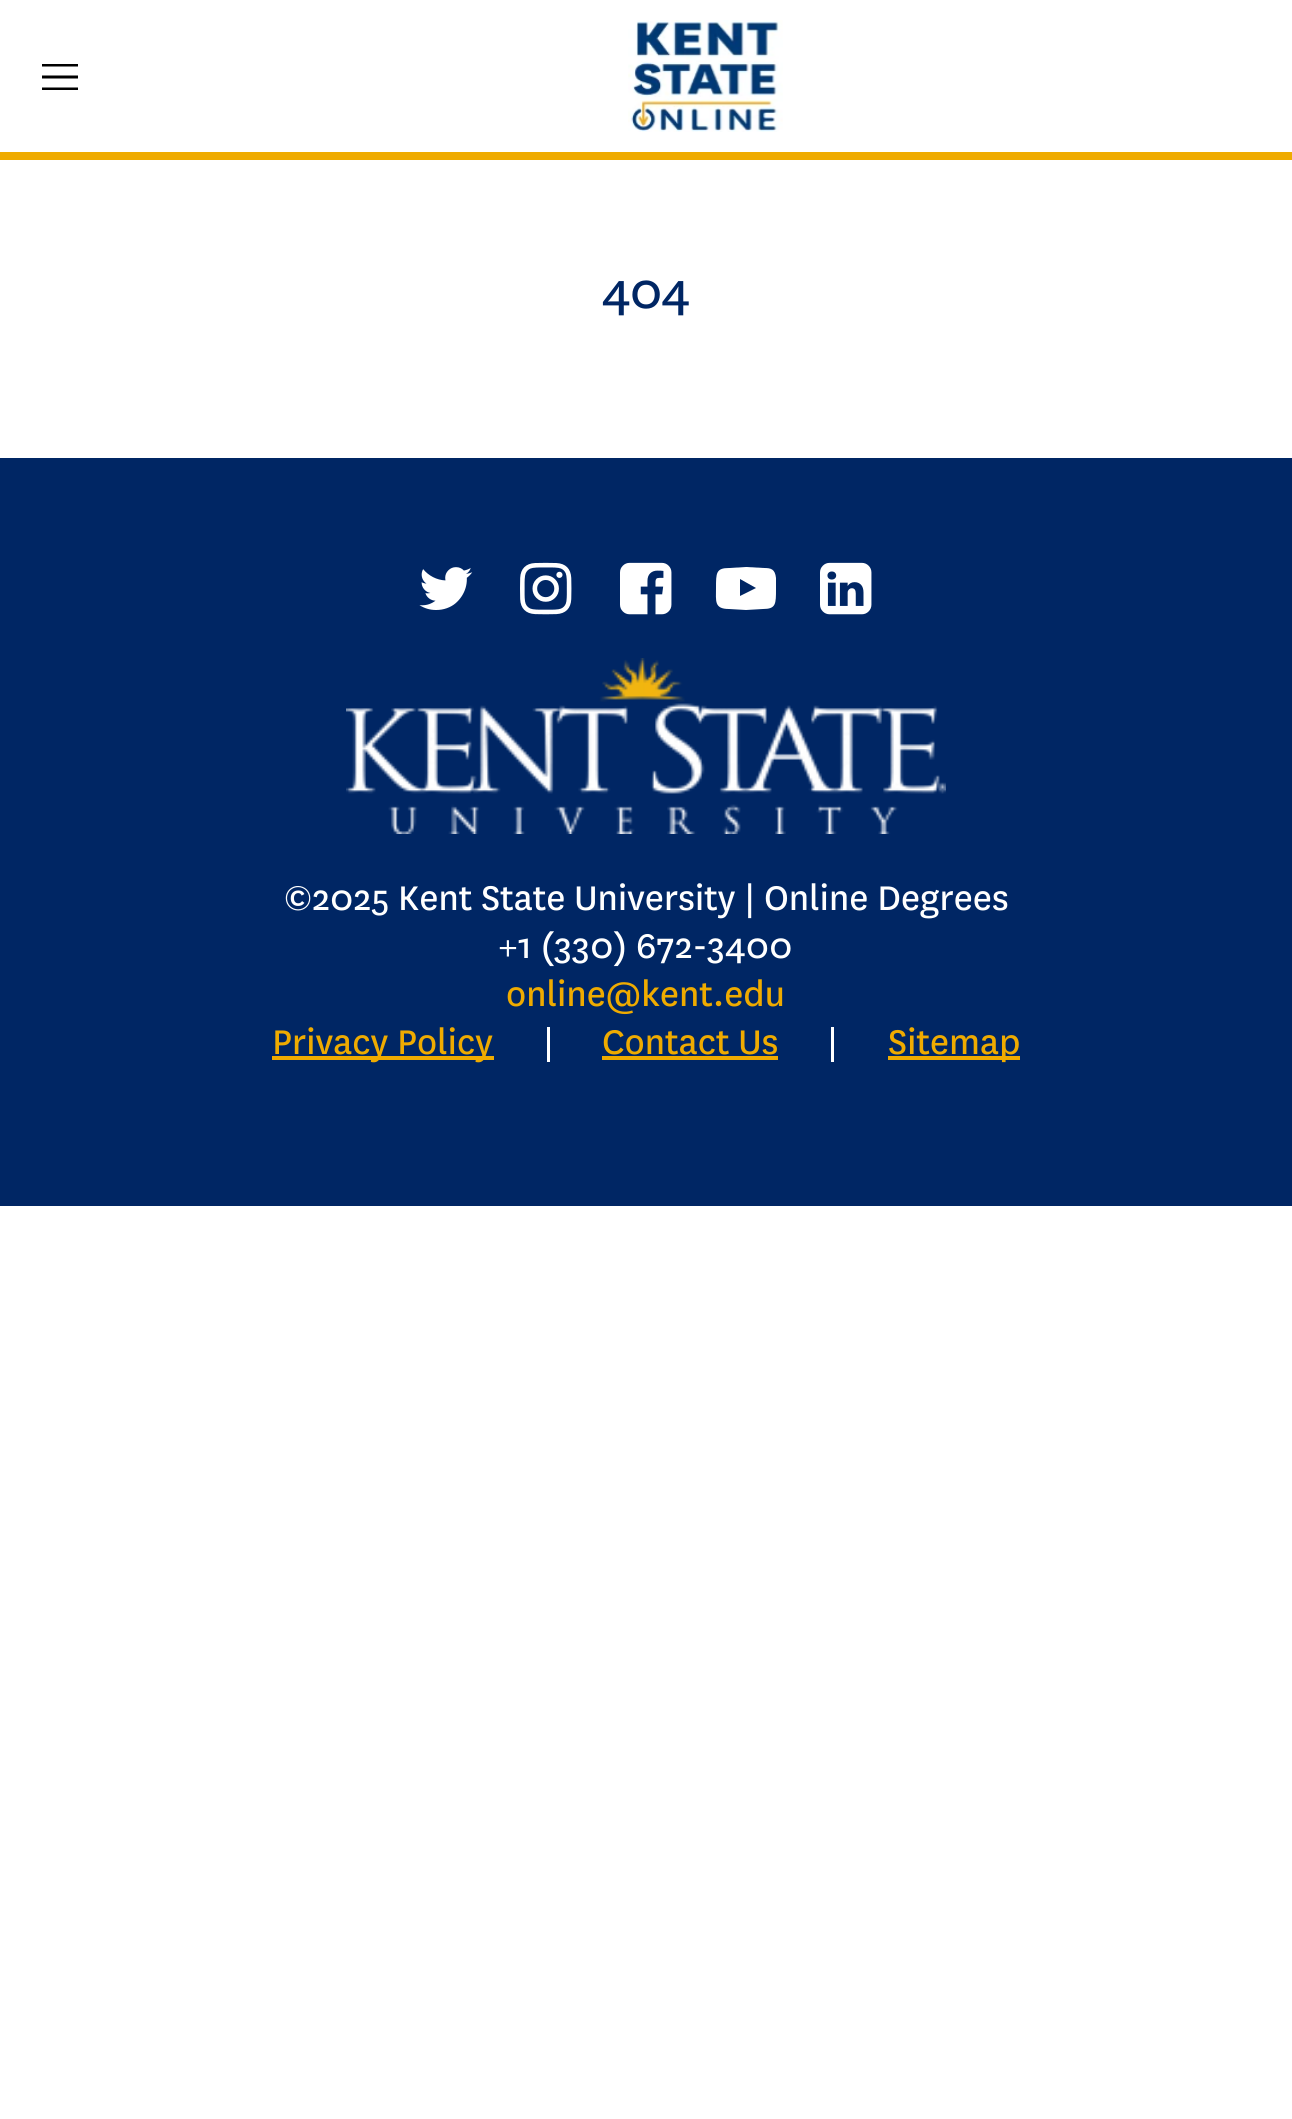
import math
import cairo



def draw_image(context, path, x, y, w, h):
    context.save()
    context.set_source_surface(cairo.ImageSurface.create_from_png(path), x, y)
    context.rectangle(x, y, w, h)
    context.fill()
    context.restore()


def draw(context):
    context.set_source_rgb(1, 1, 1)
    context.paint()
    context.set_source_rgb(239 / 255, 171 / 255, 0)
    context.rectangle(0, 152, 1292, 8)
    context.fill()
    context.set_source_rgb(0, 0, 0)
    context.set_fill_rule(cairo.FillRule.EVEN_ODD)
    context.new_path()
    context.move_to(42, 78.5)
    context.line_to(42, 75.5)
    context.line_to(78, 75.5)
    context.line_to(78, 78.5)
    context.close_path()
    context.move_to(42, 66.5)
    context.line_to(42, 64)
    context.line_to(78, 64)
    context.line_to(78, 66.5)
    context.close_path()
    context.move_to(42, 90)
    context.line_to(42, 87.5)
    context.line_to(78, 87.5)
    context.line_to(78, 90)
    context.close_path()
    context.fill()
    draw_image(context, "images/1.png", 628, 20, 155, 112)
    draw_image(context, "images/2.png", 602, 280, 87, 36)
    context.set_source_rgb(0, 38 / 255, 100 / 255)
    context.rectangle(0, 458, 1292, 748)
    context.fill()
    draw_image(context, "images/3.png", 419, 567, 54, 43)
    draw_image(context, "images/4.png", 520, 562, 52, 53)
    draw_image(context, "images/5.png", 620, 562, 52, 53)
    context.set_source_rgb(1, 1, 1)
    context.set_fill_rule(cairo.FillRule.WINDING)
    context.new_path()
    context.move_to(740, 596)
    context.line_to(756, 588)
    context.line_to(740, 579)
    context.close_path()
    context.move_to(746, 567)
    context.line_to(764, 568)
    context.curve_to(771, 568, 775, 569, 776, 578)
    context.line_to(776, 589)
    context.curve_to(776, 604, 776, 609, 763, 609)
    context.line_to(746, 610)
    context.line_to(729, 609)
    context.curve_to(714, 609, 716, 601, 716, 588)
    context.curve_to(716, 573, 716, 568, 729, 568)
    context.close_path()
    context.fill()
    draw_image(context, "images/6.png", 820, 562, 52, 53)
    draw_image(context, "images/7.png", 346, 658, 600, 176)
    draw_image(context, "images/8.png", 285, 883, 723, 36)
    draw_image(context, "images/9.png", 499, 931, 292, 36)
    draw_image(context, "images/10.png", 507, 979, 276, 36)
    context.set_source_rgb(239 / 255, 171 / 255, 0)
    context.rectangle(272, 1056, 222, 4)
    context.fill()
    draw_image(context, "images/11.png", 275, 1027, 218, 36)
    context.set_source_rgb(1, 1, 1)
    context.rectangle(547, 1027, 3, 35)
    context.fill()
    draw_image(context, "images/12.png", 603, 1030, 174, 25)
    context.rectangle(831, 1027, 3, 35)
    context.fill()
    context.set_source_rgb(239 / 255, 171 / 255, 0)
    context.rectangle(888, 1056, 132, 4)
    context.fill()
    draw_image(context, "images/13.png", 889, 1027, 130, 36)
    context.rectangle(602, 1056, 176, 4)
    context.fill()


surface = cairo.ImageSurface(cairo.Format.RGB24, 1292, 2119)
context = cairo.Context(surface)
options = cairo.FontOptions()
options.set_hint_metrics(cairo.HintMetrics.OFF)
options.set_hint_style(cairo.HintStyle.NONE)
context.set_font_options(options)
context.set_miter_limit(4)
draw(context)
surface.write_to_png("out.png")
